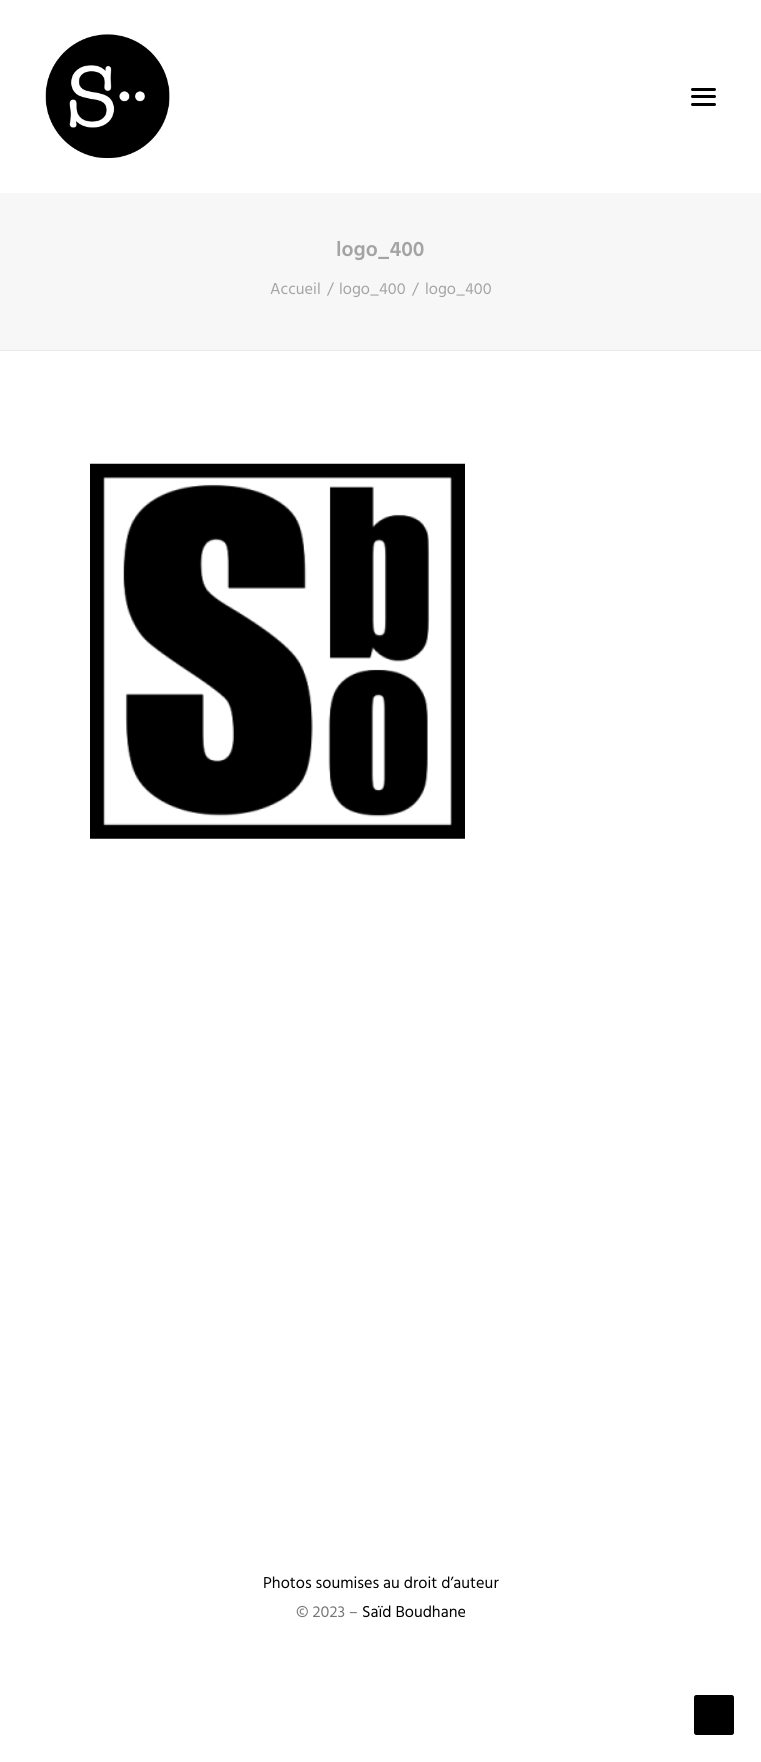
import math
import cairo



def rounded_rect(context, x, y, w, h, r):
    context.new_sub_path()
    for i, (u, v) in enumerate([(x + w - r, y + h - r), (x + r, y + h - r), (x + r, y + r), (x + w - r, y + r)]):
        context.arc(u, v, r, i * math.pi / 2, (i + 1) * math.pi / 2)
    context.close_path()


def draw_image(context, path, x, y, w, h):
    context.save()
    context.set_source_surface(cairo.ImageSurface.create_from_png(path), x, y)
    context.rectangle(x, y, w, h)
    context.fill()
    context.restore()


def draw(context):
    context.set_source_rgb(1, 1, 1)
    context.paint()
    draw_image(context, "images/1.png", 45, 34, 125, 125)
    context.set_source_rgb(0, 0, 0)
    rounded_rect(context, 691, 95, 25, 3, 1.5)
    context.fill()
    rounded_rect(context, 691, 88, 25, 3, 1.5)
    context.fill()
    rounded_rect(context, 691, 103, 25, 3, 1.5)
    context.fill()
    context.set_source_rgb(247 / 255, 247 / 255, 247 / 255)
    context.rectangle(0, 193, 761, 157)
    context.fill()
    context.set_source_rgb(234 / 255, 234 / 255, 234 / 255)
    context.rectangle(0, 350, 761, 1)
    context.fill()
    draw_image(context, "images/2.png", 90, 463, 375, 376)
    context.set_source_rgb(0, 0, 0)
    rounded_rect(context, 694.5, 1695.5, 39, 39, 2)
    context.fill_preserve()
    context.set_line_width(1)
    context.stroke()
    context.select_font_face("Hind SemiBold")
    context.set_font_size(21.25)
    context.set_source_rgb(164 / 255, 164 / 255, 164 / 255)
    context.move_to(336, 256)
    context.show_text("logo_400")
    context.select_font_face("Hind")
    context.set_font_size(16.25)
    context.move_to(270, 294)
    context.show_text("Accueil")
    context.move_to(327, 294)
    context.show_text("/")
    context.move_to(339, 294)
    context.show_text("logo_400")
    context.move_to(412, 294)
    context.show_text("/")
    context.move_to(425, 294)
    context.show_text("logo_400")
    context.set_source_rgb(0, 0, 0)
    context.move_to(263, 1588)
    context.show_text("Photos soumises au droit d’auteur")
    context.set_source_rgb(119 / 255, 119 / 255, 119 / 255)
    context.move_to(296, 1617)
    context.show_text("© 2023 –")
    context.set_source_rgb(0, 0, 0)
    context.move_to(362, 1617)
    context.show_text("Saïd Boudhane")


surface = cairo.ImageSurface(cairo.Format.RGB24, 761, 1762)
context = cairo.Context(surface)
options = cairo.FontOptions()
options.set_hint_metrics(cairo.HintMetrics.OFF)
options.set_hint_style(cairo.HintStyle.NONE)
context.set_font_options(options)
context.set_miter_limit(4)
draw(context)
surface.write_to_png("out.png")
